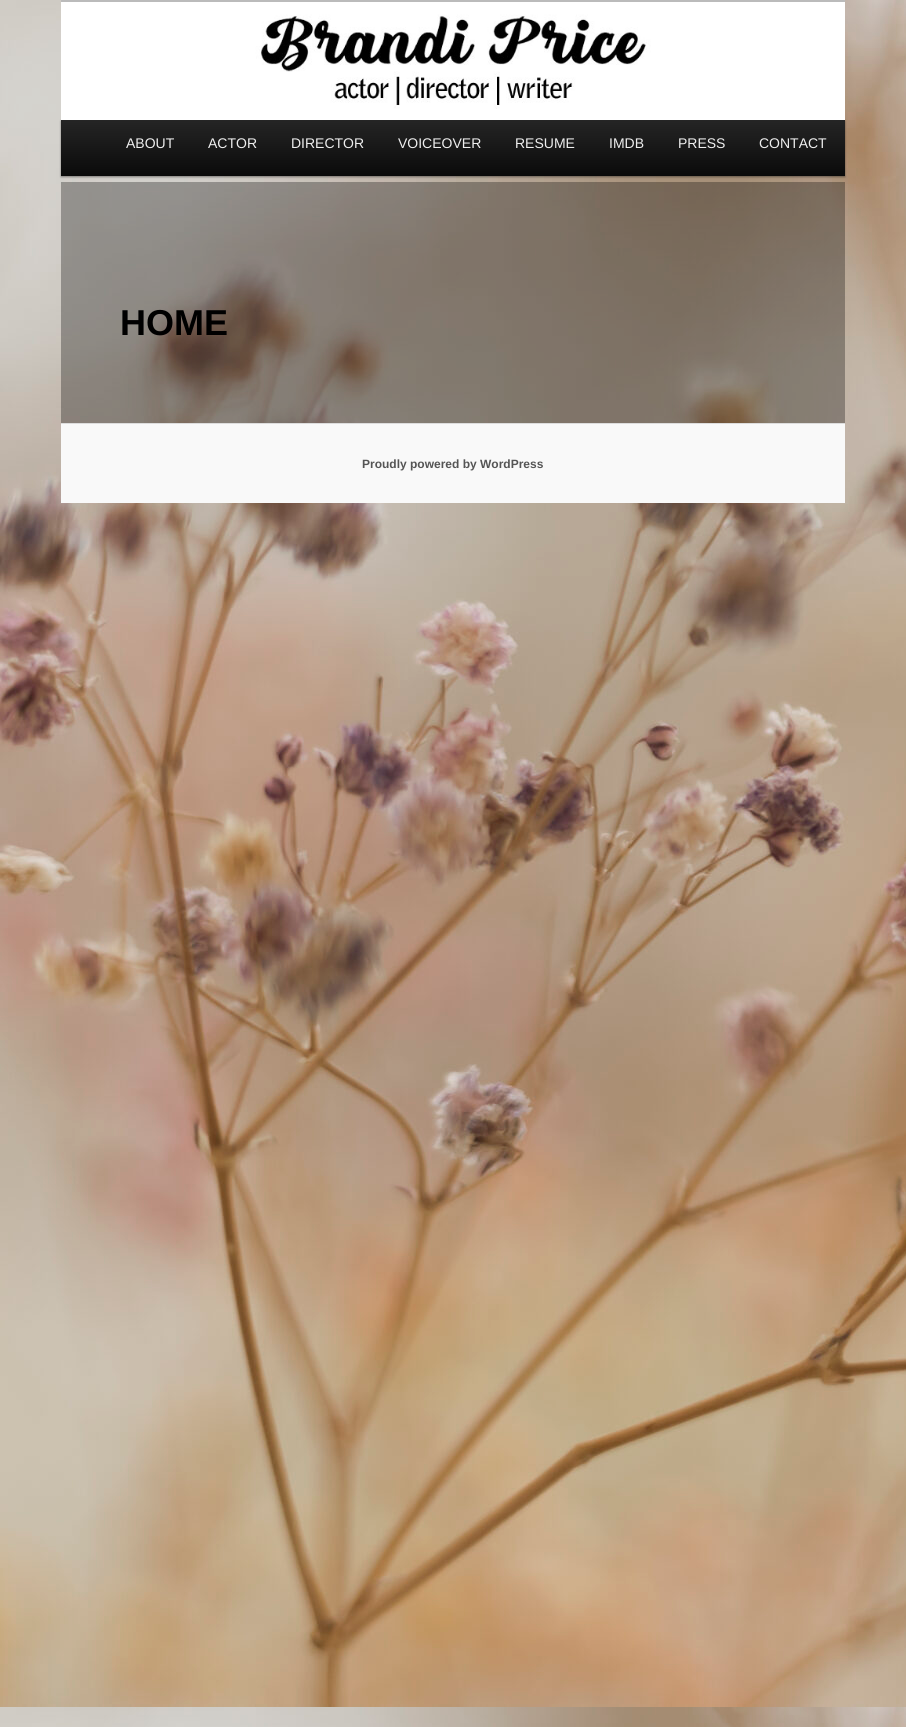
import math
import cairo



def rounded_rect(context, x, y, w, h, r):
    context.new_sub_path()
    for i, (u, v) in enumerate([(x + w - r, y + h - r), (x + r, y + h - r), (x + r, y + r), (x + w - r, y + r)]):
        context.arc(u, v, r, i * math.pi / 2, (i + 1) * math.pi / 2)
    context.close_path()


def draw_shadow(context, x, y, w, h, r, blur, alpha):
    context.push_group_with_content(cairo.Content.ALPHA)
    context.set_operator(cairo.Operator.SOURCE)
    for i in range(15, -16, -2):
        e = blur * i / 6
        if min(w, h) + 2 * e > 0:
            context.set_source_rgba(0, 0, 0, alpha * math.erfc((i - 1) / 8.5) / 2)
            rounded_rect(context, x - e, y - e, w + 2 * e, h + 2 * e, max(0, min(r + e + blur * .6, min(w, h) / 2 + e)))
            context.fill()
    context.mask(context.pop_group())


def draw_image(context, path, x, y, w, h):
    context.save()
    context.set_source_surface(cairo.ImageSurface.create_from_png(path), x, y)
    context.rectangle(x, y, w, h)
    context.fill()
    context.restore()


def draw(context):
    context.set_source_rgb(1, 1, 1)
    context.paint()
    draw_image(context, "images/1.png", 0, 0, 906, 1727)
    context.set_source_rgb(187 / 255, 187 / 255, 187 / 255)
    context.rectangle(61, 0, 784, 2)
    context.fill()
    context.set_source_rgb(0, 0, 0)
    draw_shadow(context, 61, 121, 784, 56, 0, 1, 0.4)
    draw_image(context, "images/2.png", 61, 2, 784, 118)
    gradient = cairo.LinearGradient(453, 120, 453, 176)
    gradient.add_color_stop_rgba(0, 37 / 255, 37 / 255, 37 / 255, 1)
    gradient.add_color_stop_rgba(1, 10 / 255, 10 / 255, 10 / 255, 1)
    context.set_source(gradient)
    context.rectangle(61, 120, 784, 56)
    context.fill()
    context.set_source_rgba(0, 0, 0, 0.3)
    context.rectangle(61, 182, 784, 32)
    context.fill()
    context.rectangle(61, 214, 784, 209)
    context.fill()
    context.set_source_rgb(249 / 255, 249 / 255, 249 / 255)
    context.rectangle(61, 424, 784, 79)
    context.fill()
    context.set_source_rgb(221 / 255, 221 / 255, 221 / 255)
    context.rectangle(61, 423, 784, 1)
    context.fill()
    context.select_font_face("Liberation Sans")
    context.set_font_size(14)
    context.set_source_rgb(238 / 255, 238 / 255, 238 / 255)
    context.move_to(126, 148)
    context.show_text("ABOUT")
    context.move_to(208, 148)
    context.show_text("ACTOR")
    context.move_to(291, 148)
    context.show_text("DIRECTOR")
    context.move_to(398, 148)
    context.show_text("VOICEOVER")
    context.move_to(515, 148)
    context.show_text("RESUME")
    context.move_to(609, 148)
    context.show_text("IMDB")
    context.move_to(678, 148)
    context.show_text("PRESS")
    context.move_to(759, 148)
    context.show_text("CONTACT")
    context.select_font_face("Liberation Sans", cairo.FontSlant.NORMAL, cairo.FontWeight.BOLD)
    context.set_font_size(36)
    context.set_source_rgb(0, 0, 0)
    context.move_to(120, 335)
    context.show_text("HOME")
    context.set_font_size(12)
    context.set_source_rgb(85 / 255, 85 / 255, 85 / 255)
    context.move_to(362, 468)
    context.show_text("Proudly powered by WordPress")


surface = cairo.ImageSurface(cairo.Format.RGB24, 906, 1727)
context = cairo.Context(surface)
options = cairo.FontOptions()
options.set_hint_metrics(cairo.HintMetrics.OFF)
options.set_hint_style(cairo.HintStyle.NONE)
context.set_font_options(options)
context.set_miter_limit(4)
draw(context)
surface.write_to_png("out.png")
